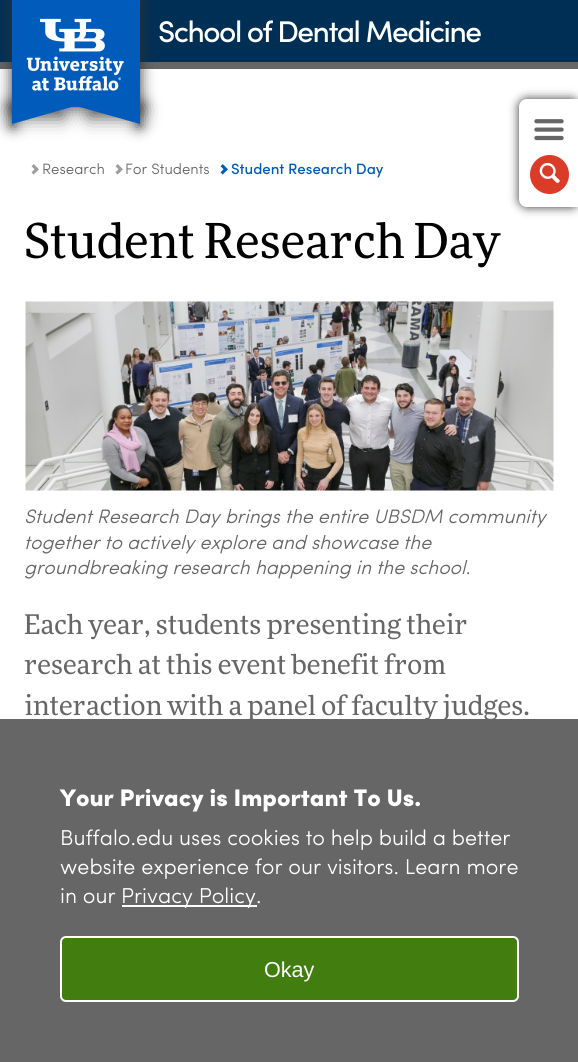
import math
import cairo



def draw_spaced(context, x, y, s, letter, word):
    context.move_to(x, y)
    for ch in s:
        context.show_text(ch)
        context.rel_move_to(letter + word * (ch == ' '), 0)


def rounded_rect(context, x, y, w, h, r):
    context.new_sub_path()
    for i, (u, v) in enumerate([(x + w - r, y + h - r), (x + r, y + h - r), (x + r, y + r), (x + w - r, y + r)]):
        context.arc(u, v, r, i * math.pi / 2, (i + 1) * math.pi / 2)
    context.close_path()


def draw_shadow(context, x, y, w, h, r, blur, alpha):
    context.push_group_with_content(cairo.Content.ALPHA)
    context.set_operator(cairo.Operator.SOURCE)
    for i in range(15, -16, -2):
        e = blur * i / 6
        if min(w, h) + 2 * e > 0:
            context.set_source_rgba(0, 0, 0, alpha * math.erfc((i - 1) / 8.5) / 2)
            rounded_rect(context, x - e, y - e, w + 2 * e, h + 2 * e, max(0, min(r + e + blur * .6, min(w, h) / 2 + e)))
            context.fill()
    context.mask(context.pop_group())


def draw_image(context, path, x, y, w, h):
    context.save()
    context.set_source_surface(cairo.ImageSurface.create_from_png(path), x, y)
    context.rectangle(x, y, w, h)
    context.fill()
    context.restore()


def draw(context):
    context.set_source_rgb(1, 1, 1)
    context.paint()
    context.set_source_rgb(0, 47 / 255, 86 / 255)
    context.rectangle(0, 0, 578, 62)
    context.fill()
    context.set_source_rgb(102 / 255, 102 / 255, 102 / 255)
    context.rectangle(0, 62, 578, 7)
    context.fill()
    context.set_source_rgb(51 / 255, 51 / 255, 51 / 255)
    draw_shadow(context, 12, 0, 128, 107, 0, 7.5, 1)
    context.set_source_rgb(85 / 255, 85 / 255, 85 / 255)
    draw_shadow(context, 12, 108, 50, 8, 1.5, 10, 1)
    draw_shadow(context, 90, 108, 50, 8, 1.5, 10, 1)
    context.set_source_rgb(51 / 255, 51 / 255, 51 / 255)
    draw_shadow(context, 12, 107, 2, 18, 0, 7.5, 1)
    draw_shadow(context, 138, 107, 2, 18, 0, 7.5, 1)
    context.set_source_rgb(0, 91 / 255, 187 / 255)
    context.rectangle(12, 0, 128, 107)
    context.fill()
    draw_image(context, "images/1.png", 26, 18, 98, 73)
    context.new_path()
    context.move_to(140, 106)
    context.line_to(140, 124)
    context.line_to(76, 106)
    context.close_path()
    context.fill()
    context.new_path()
    context.move_to(12, 124)
    context.line_to(12, 106)
    context.line_to(75, 106)
    context.close_path()
    context.fill()
    context.set_source_rgb(51 / 255, 51 / 255, 51 / 255)
    draw_shadow(context, 519, 99, 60, 108, 8, 5, 1)
    context.set_source_rgb(1, 1, 1)
    context.new_path()
    context.move_to(527, 99)
    context.line_to(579, 99)
    context.line_to(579, 207)
    context.line_to(527, 207)
    context.curve_to(522.5, 207, 519, 203.5, 519, 199)
    context.line_to(519, 107)
    context.curve_to(519, 102.5, 522.5, 99, 527, 99)
    context.close_path()
    context.fill()
    draw_image(context, "images/2.png", 534, 119, 30, 22)
    context.set_source_rgb(218 / 255, 60 / 255, 40 / 255)
    context.arc(549.5, 174.5, 19.5, 0, 2 * math.pi)
    context.fill()
    draw_image(context, "images/3.png", 539, 162, 21, 22)
    draw_image(context, "images/4.png", 31, 164, 8, 11)
    draw_image(context, "images/4.png", 115, 164, 8, 11)
    draw_image(context, "images/5.png", 220, 164, 8, 11)
    draw_image(context, "images/6.png", 25, 301, 529, 190)
    context.set_source_rgb(102 / 255, 102 / 255, 102 / 255)
    context.rectangle(0, 719, 578, 343)
    context.fill()
    context.set_source_rgb(1, 1, 1)
    context.rectangle(122, 905, 135, 2)
    context.fill()
    context.set_source_rgb(66 / 255, 125 / 255, 16 / 255)
    rounded_rect(context, 61, 937, 457, 64, 5)
    context.fill_preserve()
    context.set_source_rgb(1, 1, 1)
    context.stroke()
    context.select_font_face("Sofia Medium")
    context.set_font_size(30)
    draw_spaced(context, 158, 42, "School of Dental Medicine", -1.5, 0)
    context.select_font_face("Sofia")
    context.set_font_size(15)
    context.set_source_rgb(102 / 255, 102 / 255, 102 / 255)
    context.move_to(42, 174)
    context.show_text("Research")
    context.move_to(125, 174)
    context.show_text("For Students")
    context.select_font_face("Sofia Medium")
    context.set_source_rgb(0, 91 / 255, 187 / 255)
    context.move_to(231, 174)
    context.show_text("Student Research Day")
    context.select_font_face("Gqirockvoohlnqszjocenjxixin")
    context.set_font_size(48)
    context.set_source_rgb(0, 0, 0)
    context.move_to(24, 258)
    context.show_text("Student Research Day")
    context.select_font_face("Sofia", cairo.FontSlant.ITALIC)
    context.set_font_size(19.5)
    context.set_source_rgb(102 / 255, 102 / 255, 102 / 255)
    context.move_to(24, 523)
    context.show_text("Student Research Day brings the entire UBSDM community")
    context.move_to(24, 549)
    context.show_text("together to actively explore and showcase the")
    context.move_to(24, 574)
    context.show_text("groundbreaking research happening in the school.")
    context.select_font_face("Gqirockvoohlnqszjocenjxixin")
    context.set_font_size(27)
    context.move_to(24, 634)
    context.show_text("Each year, students presenting their")
    context.move_to(24, 674)
    context.show_text("research at this event benefit from")
    context.move_to(24, 715)
    context.show_text("interaction with a panel of faculty judges.")
    context.select_font_face("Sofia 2")
    context.set_font_size(24)
    context.set_source_rgb(1, 1, 1)
    context.move_to(60, 806)
    context.show_text("Your Privacy is Important To Us.")
    context.select_font_face("Sofia")
    context.set_font_size(21.6)
    context.move_to(60, 845)
    context.show_text("Buffalo.edu uses cookies to help build a better")
    context.move_to(60, 874)
    context.show_text("website experience for our visitors. Learn more")
    context.move_to(60, 903)
    context.show_text("in our")
    context.move_to(121, 903)
    context.show_text("Privacy Policy.")
    context.select_font_face("Liberation Sans")
    context.move_to(264, 977)
    context.show_text("Okay")


surface = cairo.ImageSurface(cairo.Format.RGB24, 578, 1062)
context = cairo.Context(surface)
options = cairo.FontOptions()
options.set_hint_metrics(cairo.HintMetrics.OFF)
options.set_hint_style(cairo.HintStyle.NONE)
context.set_font_options(options)
context.set_miter_limit(4)
draw(context)
surface.write_to_png("out.png")
